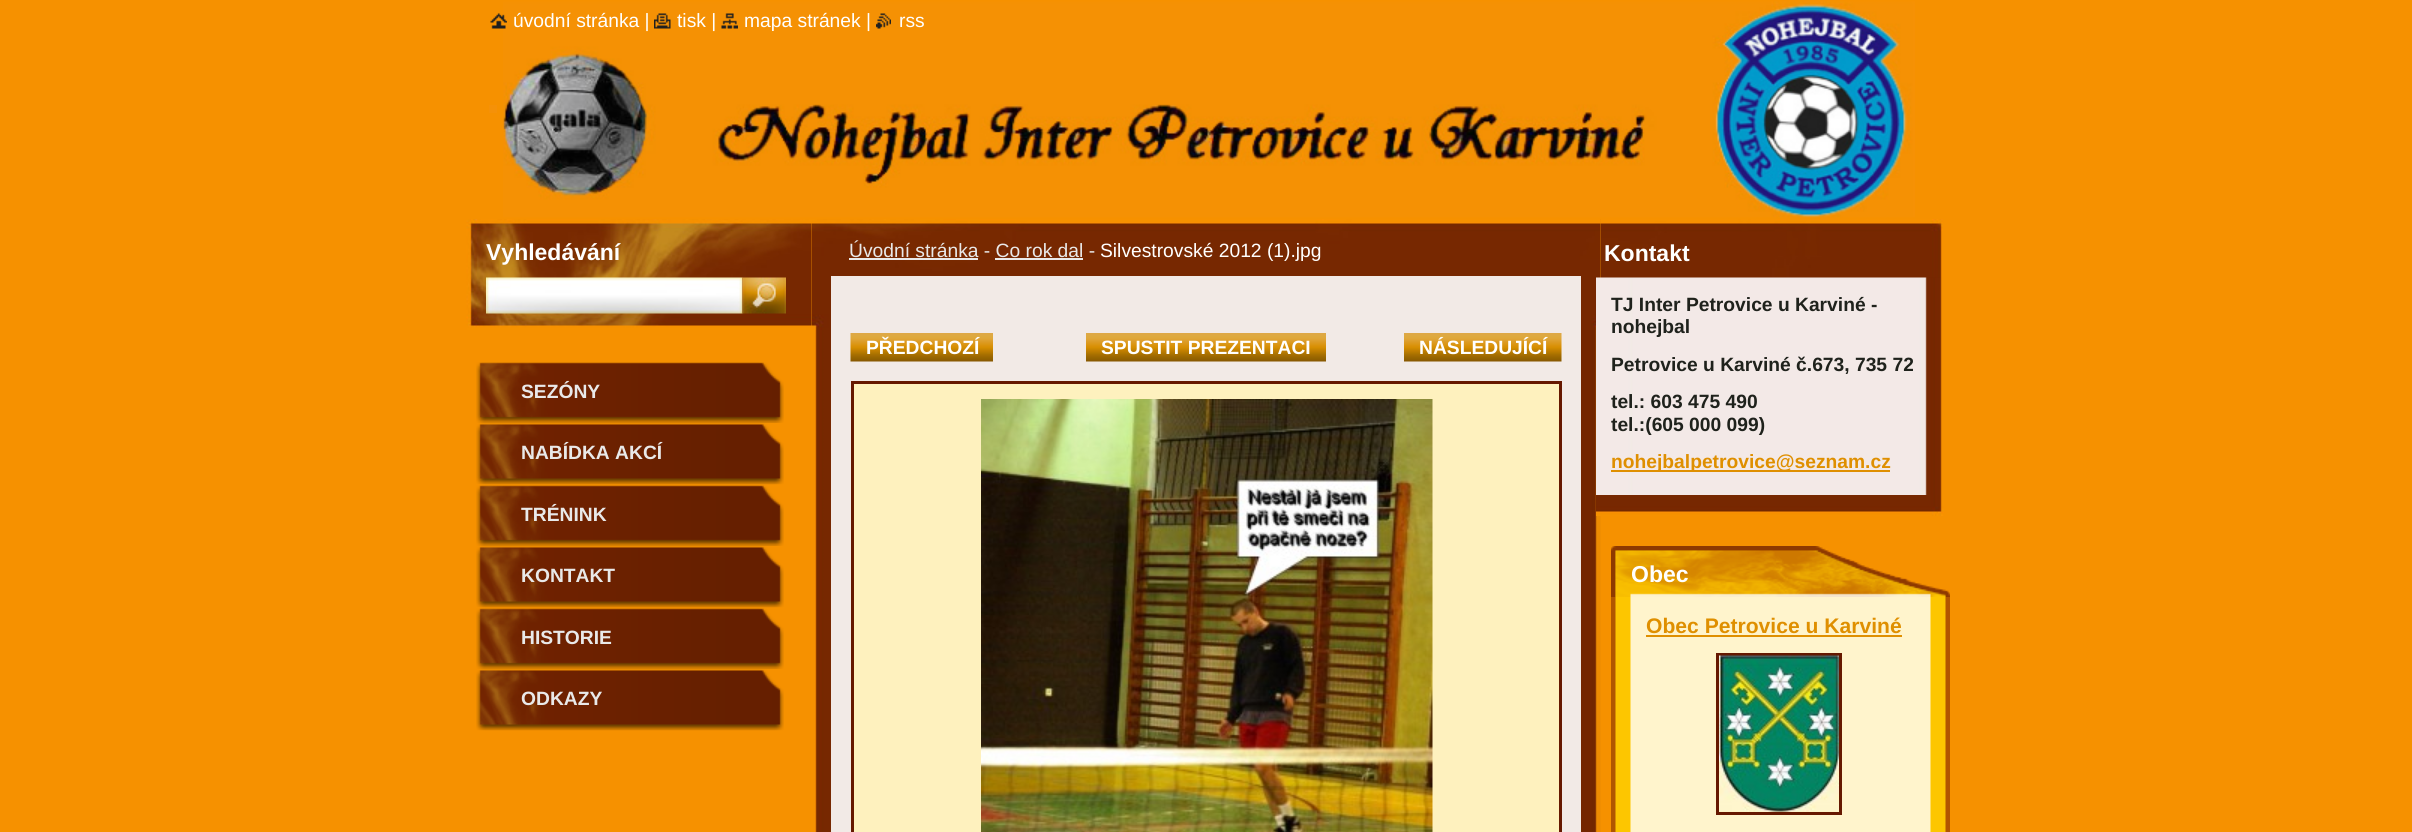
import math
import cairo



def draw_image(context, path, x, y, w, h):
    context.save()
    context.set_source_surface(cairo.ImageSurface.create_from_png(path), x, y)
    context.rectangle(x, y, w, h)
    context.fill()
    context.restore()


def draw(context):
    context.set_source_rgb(246 / 255, 145 / 255, 0)
    context.paint()
    context.set_source_rgb(245 / 255, 145 / 255, 8 / 255)
    context.rectangle(489, 105, 8, 8)
    context.fill()
    draw_image(context, "images/1.png", 503, 1, 1412, 217)
    draw_image(context, "images/2.png", 490, 13, 17, 16)
    draw_image(context, "images/3.png", 654, 13, 17, 16)
    draw_image(context, "images/4.png", 721, 13, 17, 16)
    draw_image(context, "images/5.png", 876, 13, 15, 16)
    draw_image(context, "images/6.png", 466, 219, 1477, 111)
    draw_image(context, "images/7.png", 486, 277, 257, 37)
    draw_image(context, "images/8.png", 742, 277, 44, 37)
    draw_image(context, "images/9.png", 811, 219, 790, 613)
    draw_image(context, "images/10.png", 811, 219, 790, 111)
    context.set_source_rgb(233 / 255, 233 / 255, 233 / 255)
    context.rectangle(849, 258, 129, 2)
    context.fill()
    context.rectangle(995, 258, 88, 2)
    context.fill()
    context.set_source_rgb(242 / 255, 234 / 255, 230 / 255)
    context.rectangle(831, 276, 750, 556)
    context.fill()
    draw_image(context, "images/11.png", 850, 333, 143, 29)
    draw_image(context, "images/12.png", 1086, 333, 240, 29)
    draw_image(context, "images/13.png", 1404, 333, 158, 29)
    context.set_source_rgb(254 / 255, 241 / 255, 190 / 255)
    context.rectangle(852.5, 382.5, 708, 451)
    context.fill_preserve()
    context.set_source_rgb(102 / 255, 24 / 255, 0)
    context.set_line_width(3)
    context.stroke()
    draw_image(context, "images/14.png", 981, 399, 452, 433)
    draw_image(context, "images/15.png", 1596, 277, 347, 218)
    context.set_source_rgb(223 / 255, 143 / 255, 0)
    context.rectangle(1611, 470, 153, 2)
    context.fill()
    context.rectangle(1764, 470, 126, 2)
    context.fill()
    draw_image(context, "images/16.png", 1596, 495, 348, 21)
    draw_image(context, "images/17.png", 1611, 546, 339, 51)
    draw_image(context, "images/18.png", 1611, 546, 339, 51)
    draw_image(context, "images/19.png", 1611, 597, 339, 235)
    context.rectangle(1646, 635, 256, 2)
    context.fill()
    context.set_source_rgb(254 / 255, 241 / 255, 190 / 255)
    context.rectangle(1719, 811, 120, 1)
    context.fill()
    context.rectangle(1717.5, 654.5, 123, 159)
    context.set_source_rgb(102 / 255, 24 / 255, 0)
    context.stroke()
    draw_image(context, "images/20.png", 1719, 655, 120, 157)
    draw_image(context, "images/21.png", 476, 362, 308, 61)
    draw_image(context, "images/22.png", 476, 423, 308, 62)
    draw_image(context, "images/21.png", 476, 485, 308, 61)
    draw_image(context, "images/22.png", 476, 546, 308, 62)
    draw_image(context, "images/21.png", 476, 608, 308, 61)
    draw_image(context, "images/22.png", 476, 669, 308, 62)
    context.select_font_face("Liberation Sans")
    context.set_font_size(19.25)
    context.set_source_rgb(1, 1, 1)
    context.move_to(513, 27)
    context.show_text("úvodní stránka |")
    context.move_to(677, 27)
    context.show_text("tisk |")
    context.move_to(744, 27)
    context.show_text("mapa stránek |")
    context.move_to(899, 27)
    context.show_text("rss")
    context.select_font_face("Liberation Sans", cairo.FontSlant.NORMAL, cairo.FontWeight.BOLD)
    context.set_font_size(23)
    context.move_to(486, 260)
    context.show_text("Vyhledávání")
    context.select_font_face("Liberation Sans")
    context.set_font_size(19.25)
    context.set_source_rgb(233 / 255, 233 / 255, 233 / 255)
    context.move_to(849, 257)
    context.show_text("Úvodní stránka - Co rok dal -")
    context.set_source_rgb(1, 1, 1)
    context.move_to(1100, 257)
    context.show_text("Silvestrovské 2012 (1).jpg")
    context.select_font_face("Liberation Sans", cairo.FontSlant.NORMAL, cairo.FontWeight.BOLD)
    context.move_to(866, 354)
    context.show_text("PŘEDCHOZÍ")
    context.move_to(1101, 354)
    context.show_text("SPUSTIT PREZENTACI")
    context.move_to(1419, 354)
    context.show_text("NÁSLEDUJÍCÍ")
    context.set_font_size(23)
    context.move_to(1604, 261)
    context.show_text("Kontakt")
    context.set_font_size(19.25)
    context.set_source_rgb(31 / 255, 34 / 255, 28 / 255)
    context.move_to(1611, 311)
    context.show_text("TJ Inter Petrovice u Karviné -")
    context.move_to(1611, 333)
    context.show_text("nohejbal")
    context.move_to(1611, 371)
    context.show_text("Petrovice u Karviné č.673, 735 72")
    context.move_to(1611, 408)
    context.show_text("tel.: 603 475 490")
    context.move_to(1611, 431)
    context.show_text("tel.:(605 000 099)")
    context.set_source_rgb(223 / 255, 143 / 255, 0)
    context.move_to(1611, 468)
    context.show_text("nohejbalpetrovic")
    context.move_to(1765, 468)
    context.show_text("e@seznam.cz")
    context.set_font_size(23)
    context.set_source_rgb(1, 1, 1)
    context.move_to(1631, 582)
    context.show_text("Obec")
    context.set_font_size(21.1)
    context.set_source_rgb(223 / 255, 143 / 255, 0)
    context.move_to(1646, 633)
    context.show_text("Obec Petrovice u Karviné")
    context.set_font_size(19.25)
    context.set_source_rgb(233 / 255, 233 / 255, 233 / 255)
    context.move_to(521, 398)
    context.show_text("SEZÓNY")
    context.move_to(521, 459)
    context.show_text("NABÍDKA AKCÍ")
    context.move_to(521, 521)
    context.show_text("TRÉNINK")
    context.move_to(521, 582)
    context.show_text("KONTAKT")
    context.move_to(521, 644)
    context.show_text("HISTORIE")
    context.move_to(521, 705)
    context.show_text("ODKAZY")


surface = cairo.ImageSurface(cairo.Format.RGB24, 2412, 832)
context = cairo.Context(surface)
options = cairo.FontOptions()
options.set_hint_metrics(cairo.HintMetrics.OFF)
options.set_hint_style(cairo.HintStyle.NONE)
context.set_font_options(options)
context.set_miter_limit(4)
draw(context)
surface.write_to_png("out.png")
